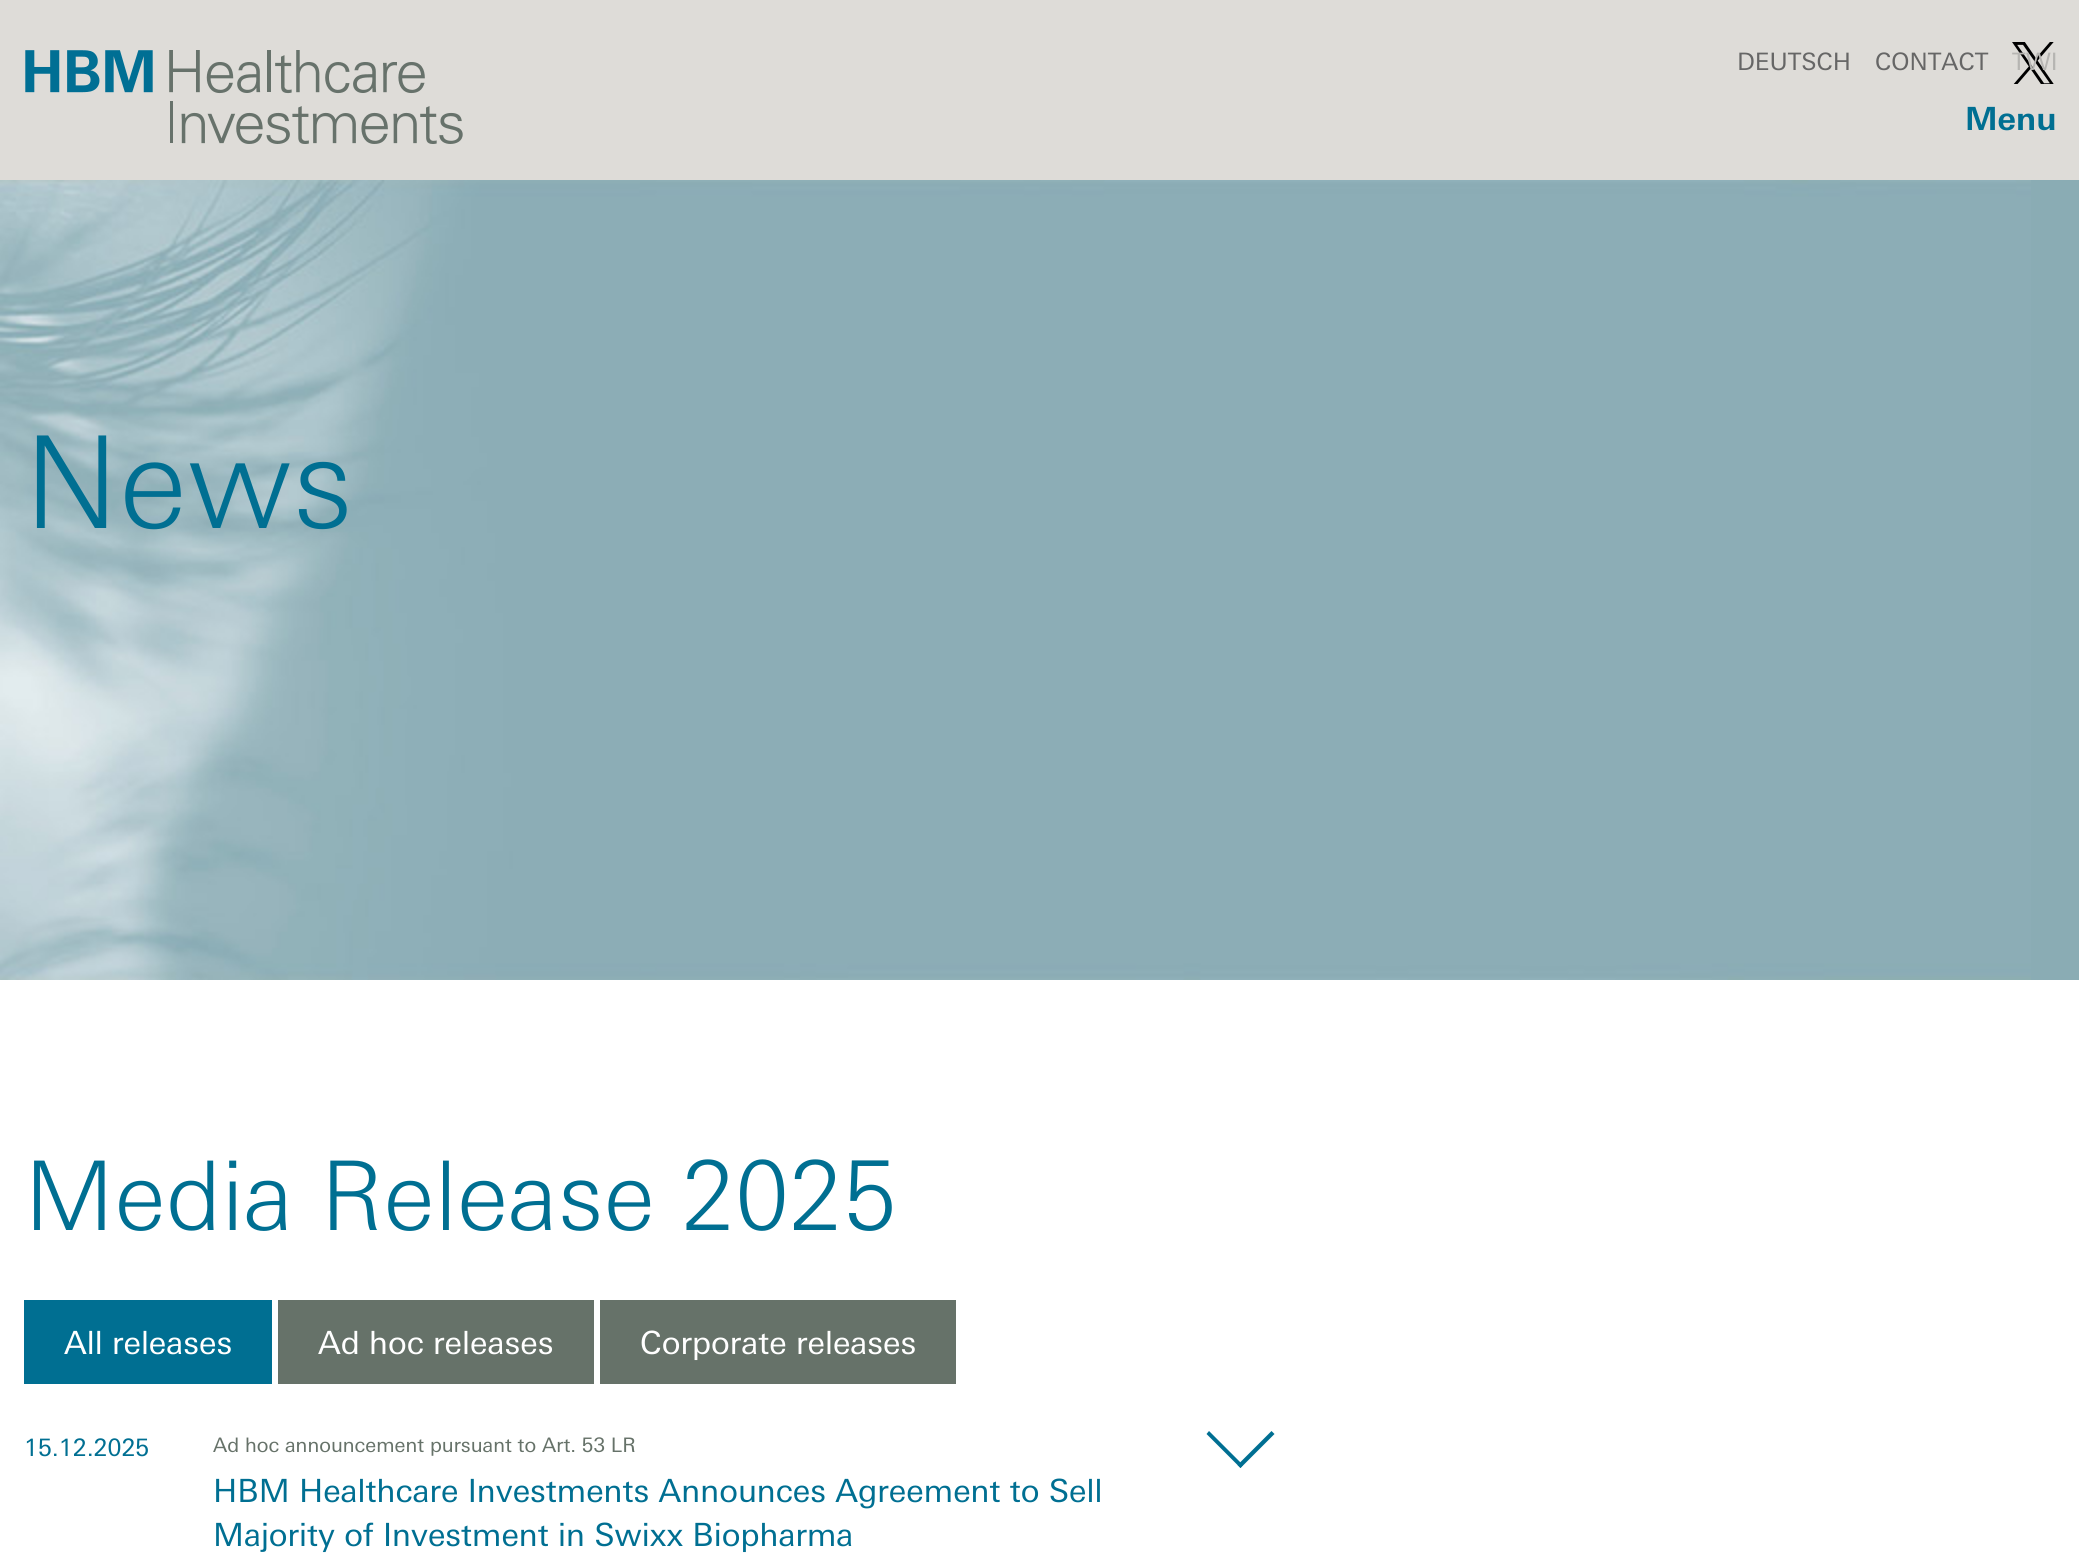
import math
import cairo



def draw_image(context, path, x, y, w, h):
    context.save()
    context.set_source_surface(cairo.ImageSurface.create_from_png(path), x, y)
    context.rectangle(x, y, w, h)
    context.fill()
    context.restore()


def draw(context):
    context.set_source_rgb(1, 1, 1)
    context.paint()
    context.set_source_rgb(222 / 255, 220 / 255, 216 / 255)
    context.rectangle(0, 0, 2079, 180)
    context.fill()
    draw_image(context, "images/1.png", 25, 50, 438, 94)
    draw_image(context, "images/2.png", 2012, 42, 42, 42)
    context.set_source_rgb(138 / 255, 172 / 255, 180 / 255)
    context.rectangle(2031, 180, 48, 800)
    context.fill()
    draw_image(context, "images/3.png", 0, 180, 2031, 800)
    context.set_source_rgb(0, 111 / 255, 146 / 255)
    context.rectangle(24, 1300, 248, 84)
    context.fill()
    context.set_source_rgb(102 / 255, 114 / 255, 105 / 255)
    context.rectangle(278, 1300, 316, 84)
    context.fill()
    context.rectangle(600, 1300, 356, 84)
    context.fill()
    context.set_source_rgb(0, 111 / 255, 146 / 255)
    context.new_path()
    context.move_to(1271.5, 1431)
    context.line_to(1274.5, 1434)
    context.line_to(1240.5, 1468)
    context.line_to(1237.5, 1465)
    context.close_path()
    context.fill()
    context.new_path()
    context.move_to(1209, 1431)
    context.line_to(1243, 1465)
    context.line_to(1240.5, 1468)
    context.line_to(1206.5, 1434)
    context.close_path()
    context.fill()
    context.select_font_face("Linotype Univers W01")
    context.set_font_size(24)
    context.set_source_rgb(102 / 255, 102 / 255, 102 / 255)
    context.move_to(1737, 70)
    context.show_text("DEUTSCH")
    context.move_to(1875, 70)
    context.show_text("CONTACT")
    context.set_source_rgb(182 / 255, 181 / 255, 178 / 255)
    context.move_to(2012, 70)
    context.show_text("TWI")
    context.select_font_face("Linotype Univers W01", cairo.FontSlant.NORMAL, cairo.FontWeight.BOLD)
    context.set_font_size(32)
    context.set_source_rgb(0, 111 / 255, 146 / 255)
    context.move_to(1965, 130)
    context.show_text("Menu")
    context.select_font_face("Linotype Univers W01 Light")
    context.set_font_size(128)
    context.move_to(24, 528)
    context.show_text("News")
    context.set_font_size(96)
    context.move_to(24, 1230)
    context.show_text("Media Release 2025")
    context.select_font_face("Linotype Univers W01")
    context.set_font_size(32)
    context.set_source_rgb(1, 1, 1)
    context.move_to(64, 1354)
    context.show_text("All releases")
    context.move_to(318, 1354)
    context.show_text("Ad hoc releases")
    context.move_to(640, 1354)
    context.show_text("Corporate releases")
    context.set_font_size(24)
    context.set_source_rgb(0, 111 / 255, 146 / 255)
    context.move_to(24, 1456)
    context.show_text("15.12.2025")
    context.set_font_size(20)
    context.set_source_rgb(102 / 255, 114 / 255, 105 / 255)
    context.move_to(213, 1452)
    context.show_text("Ad hoc announcement pursuant to Art. 53 LR")
    context.set_font_size(32)
    context.set_source_rgb(0, 111 / 255, 146 / 255)
    context.move_to(213, 1502)
    context.show_text("HBM Healthcare Investments Announces Agreement to Sell")
    context.move_to(213, 1546)
    context.show_text("Majority of Investment in Swixx Biopharma")


surface = cairo.ImageSurface(cairo.Format.RGB24, 2079, 1563)
context = cairo.Context(surface)
options = cairo.FontOptions()
options.set_hint_metrics(cairo.HintMetrics.OFF)
options.set_hint_style(cairo.HintStyle.NONE)
context.set_font_options(options)
context.set_miter_limit(4)
draw(context)
surface.write_to_png("out.png")
